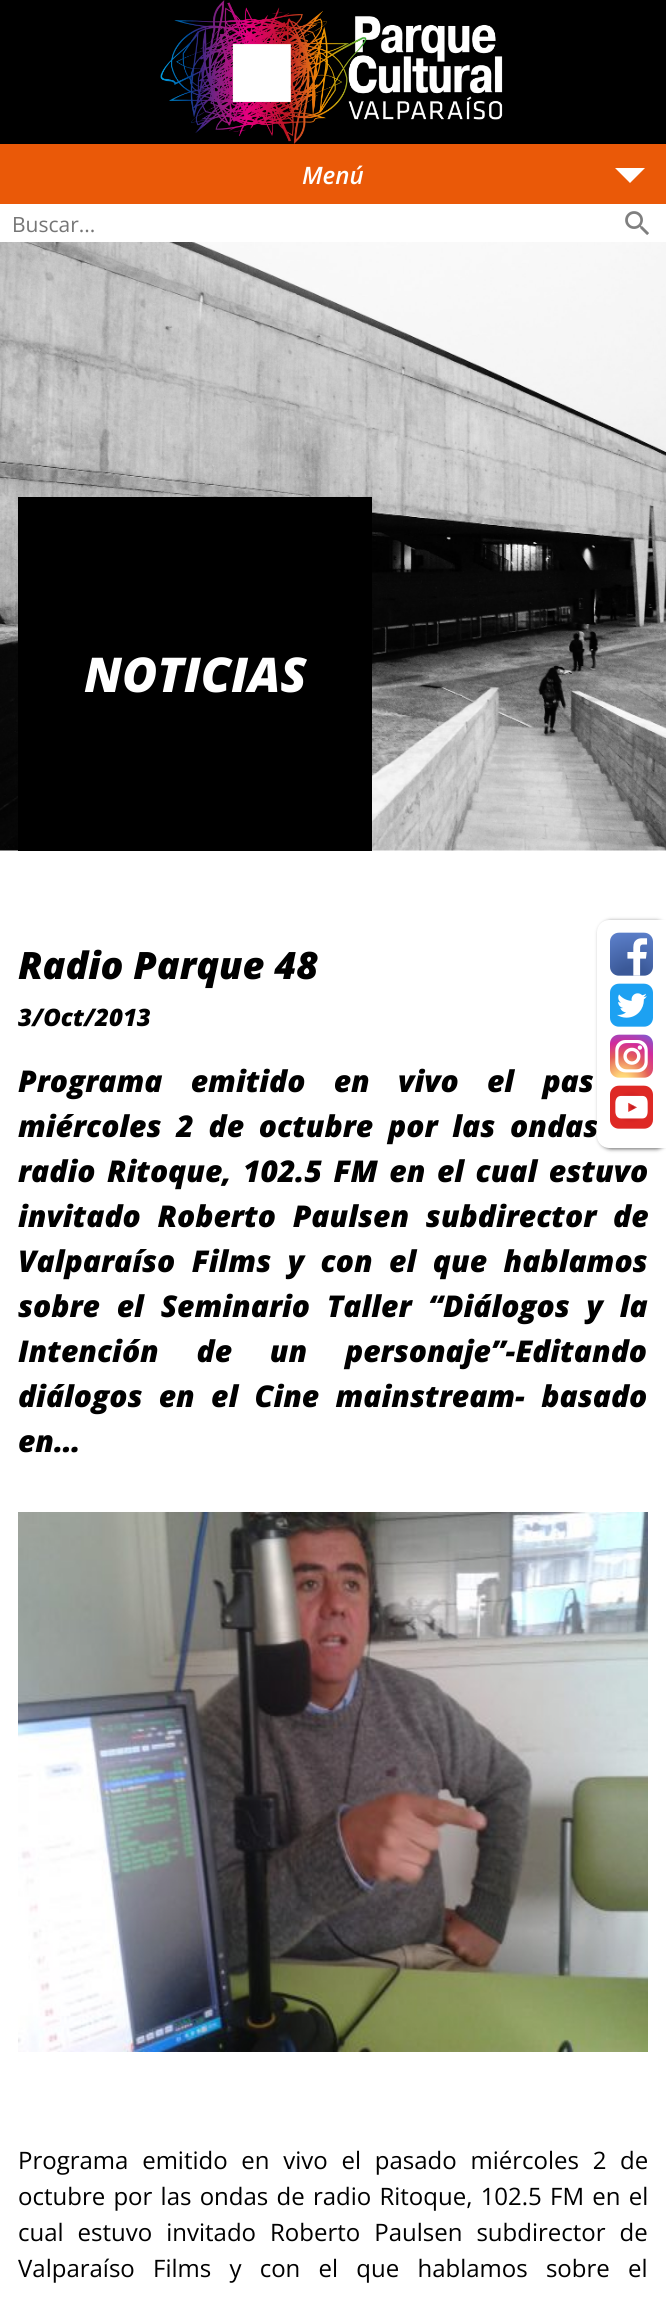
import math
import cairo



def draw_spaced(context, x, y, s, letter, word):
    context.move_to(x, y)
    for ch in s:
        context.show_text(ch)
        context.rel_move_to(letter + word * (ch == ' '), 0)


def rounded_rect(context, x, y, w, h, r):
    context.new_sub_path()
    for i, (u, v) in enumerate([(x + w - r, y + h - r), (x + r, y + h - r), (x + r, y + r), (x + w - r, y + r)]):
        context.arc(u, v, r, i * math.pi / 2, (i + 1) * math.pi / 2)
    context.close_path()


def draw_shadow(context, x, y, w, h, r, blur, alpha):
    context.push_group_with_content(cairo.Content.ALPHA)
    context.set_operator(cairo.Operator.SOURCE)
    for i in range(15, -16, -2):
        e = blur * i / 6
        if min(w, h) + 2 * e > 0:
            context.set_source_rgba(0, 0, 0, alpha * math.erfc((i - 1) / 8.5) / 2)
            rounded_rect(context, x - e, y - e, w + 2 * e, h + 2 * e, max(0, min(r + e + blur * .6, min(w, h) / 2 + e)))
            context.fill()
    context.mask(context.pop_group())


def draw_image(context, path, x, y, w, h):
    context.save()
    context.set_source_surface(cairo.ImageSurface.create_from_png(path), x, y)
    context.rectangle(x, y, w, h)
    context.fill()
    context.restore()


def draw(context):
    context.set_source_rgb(1, 1, 1)
    context.paint()
    context.set_source_rgb(0, 0, 0)
    context.rectangle(0, 0, 666, 144)
    context.fill()
    draw_image(context, "images/1.png", 160, 0, 343, 144)
    context.set_source_rgb(234 / 255, 89 / 255, 8 / 255)
    context.rectangle(0, 144, 666, 60)
    context.fill()
    context.set_source_rgb(1, 1, 1)
    context.new_path()
    context.move_to(615, 168)
    context.line_to(645, 168)
    context.line_to(630, 183)
    context.close_path()
    context.fill()
    draw_image(context, "images/2.png", 625, 211, 24, 24)
    draw_image(context, "images/3.png", 0, 242, 666, 609)
    context.set_source_rgb(0, 0, 0)
    context.rectangle(18, 497, 354, 354)
    context.fill()
    context.set_source_rgb(102 / 255, 102 / 255, 102 / 255)
    draw_shadow(context, 599, 921, 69, 228, 12, 2, 1)
    draw_image(context, "images/8.png", 18, 1512, 630, 540)
    context.select_font_face("Open Sans SemiBold", cairo.FontSlant.ITALIC)
    context.set_font_size(24)
    context.set_source_rgb(1, 1, 1)
    context.move_to(302, 184)
    context.show_text("Menú")
    context.select_font_face("Open Sans")
    context.set_font_size(21)
    context.set_source_rgb(117 / 255, 117 / 255, 117 / 255)
    context.move_to(12, 232)
    context.show_text("Buscar...")
    context.select_font_face("Open Sans ExtraBold", cairo.FontSlant.ITALIC)
    context.set_font_size(48)
    context.set_source_rgb(1, 1, 1)
    context.move_to(84, 692)
    context.show_text("NOTICIAS")
    context.set_font_size(37.75)
    context.set_source_rgb(0, 0, 0)
    context.move_to(18, 979)
    context.show_text("Radio Parque 48")
    context.set_font_size(24)
    context.move_to(18, 1026)
    context.show_text("3/Oct/2013")
    context.set_font_size(30)
    draw_spaced(context, 18, 1092, "Programa emitido en vivo el pas", 0, 20.5)
    draw_spaced(context, 18, 1137, "miércoles 2 de octubre por las ondas", 0, 7)
    context.set_source_rgb(1, 1, 1)
    context.new_path()
    context.move_to(609, 920)
    context.line_to(666, 920)
    context.line_to(666, 1148)
    context.line_to(609, 1148)
    context.curve_to(602.5, 1148, 597, 1142.5, 597, 1136)
    context.line_to(597, 932)
    context.curve_to(597, 925.5, 602.5, 920, 609, 920)
    context.close_path()
    context.fill()
    draw_image(context, "images/7.png", 610, 1085, 43, 44)
    draw_image(context, "images/6.png", 610, 1034, 43, 44)
    draw_image(context, "images/5.png", 610, 983, 43, 44)
    draw_image(context, "images/4.png", 610, 932, 43, 44)
    context.set_source_rgb(0, 0, 0)
    draw_spaced(context, 18, 1182, "radio Ritoque, 102.5 FM en el cual estuvo", 0, 3.75)
    draw_spaced(context, 18, 1227, "invitado Roberto Paulsen subdirector de", 0, 9)
    draw_spaced(context, 18, 1272, "Valparaíso Films y con el que hablamos", 0, 8.75)
    draw_spaced(context, 18, 1317, "sobre el Seminario Taller “Diálogos y la", 0, 9)
    draw_spaced(context, 18, 1362, "Intención de un personaje”-Editando", 0, 30)
    draw_spaced(context, 18, 1407, "diálogos en el Cine mainstream- basado", 0, 8.5)
    context.move_to(18, 1452)
    context.show_text("en…")
    context.select_font_face("Open Sans")
    context.set_font_size(24)
    draw_spaced(context, 18, 2169, "Programa emitido en vivo el pasado miércoles 2 de", 0, 7.5)
    draw_spaced(context, 18, 2205, "octubre por las ondas de radio Ritoque, 102.5 FM en el", 0, 2)
    draw_spaced(context, 18, 2241, "cual estuvo invitado Roberto Paulsen subdirector de", 0, 7.75)
    draw_spaced(context, 18, 2277, "Valparaíso Films y con el que hablamos sobre el", 0, 12)


surface = cairo.ImageSurface(cairo.Format.RGB24, 666, 2297)
context = cairo.Context(surface)
options = cairo.FontOptions()
options.set_hint_metrics(cairo.HintMetrics.OFF)
options.set_hint_style(cairo.HintStyle.NONE)
context.set_font_options(options)
context.set_miter_limit(4)
draw(context)
surface.write_to_png("out.png")
